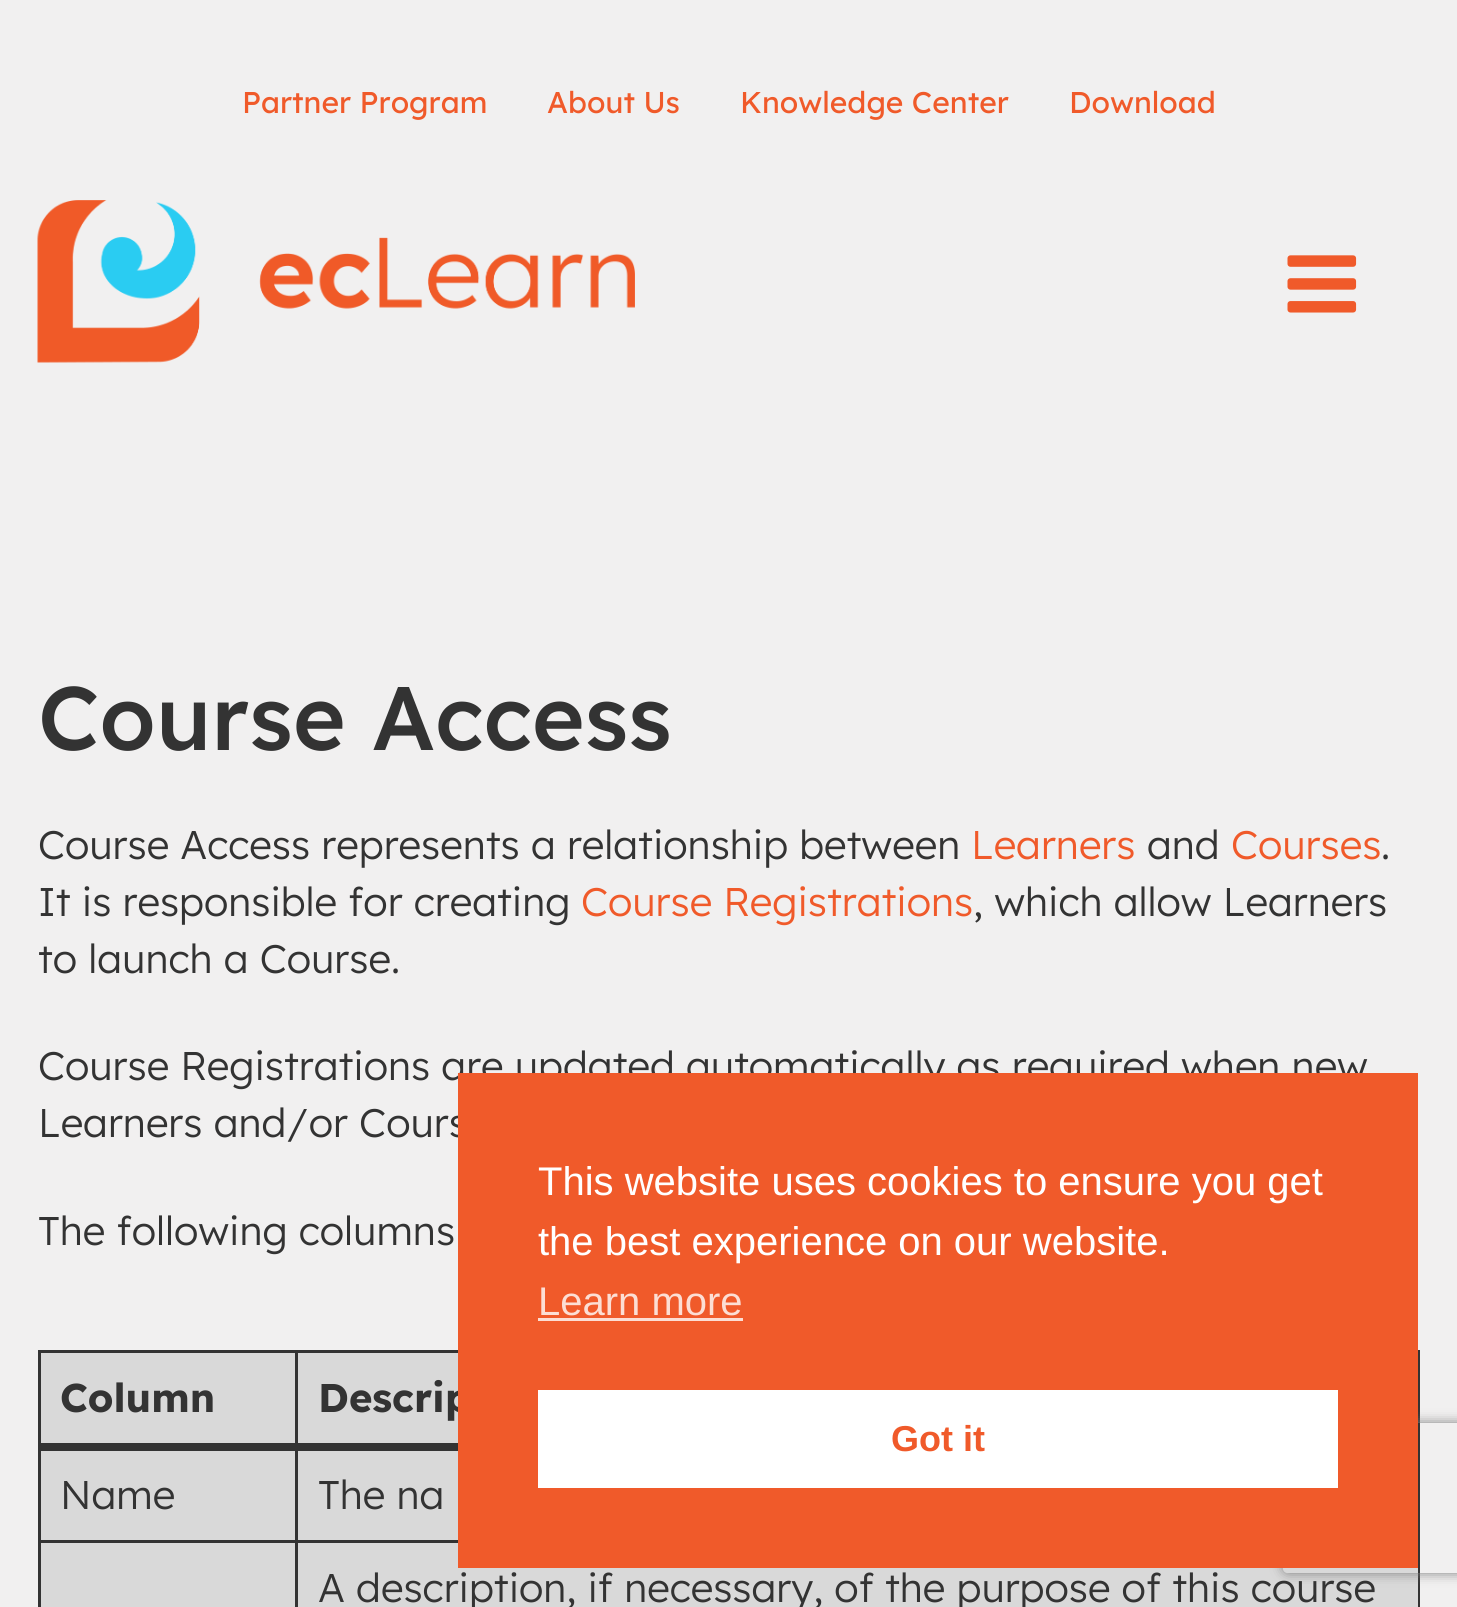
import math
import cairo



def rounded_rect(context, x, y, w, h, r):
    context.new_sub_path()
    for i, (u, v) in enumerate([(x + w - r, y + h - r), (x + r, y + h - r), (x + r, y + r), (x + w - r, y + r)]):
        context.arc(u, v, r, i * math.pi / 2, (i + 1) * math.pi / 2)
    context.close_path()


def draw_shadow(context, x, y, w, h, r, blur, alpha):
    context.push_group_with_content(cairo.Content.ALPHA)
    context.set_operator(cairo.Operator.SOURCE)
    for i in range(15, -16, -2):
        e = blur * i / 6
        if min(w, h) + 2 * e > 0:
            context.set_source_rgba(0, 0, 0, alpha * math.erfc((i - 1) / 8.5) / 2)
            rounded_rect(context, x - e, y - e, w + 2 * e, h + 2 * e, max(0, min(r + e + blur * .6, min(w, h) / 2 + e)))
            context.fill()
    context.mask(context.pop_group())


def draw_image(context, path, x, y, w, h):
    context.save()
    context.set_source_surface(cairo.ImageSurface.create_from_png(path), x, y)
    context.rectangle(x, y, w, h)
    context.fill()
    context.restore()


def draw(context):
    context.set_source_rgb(241 / 255, 240 / 255, 240 / 255)
    context.paint()
    draw_image(context, "images/1.png", 37, 200, 598, 163)
    draw_image(context, "images/2.png", 1287, 255, 70, 58)
    context.set_source_rgb(217 / 255, 217 / 255, 217 / 255)
    context.rectangle(41, 1353, 1377, 254)
    context.fill()
    context.set_source_rgb(51 / 255, 51 / 255, 51 / 255)
    context.rectangle(295, 1350, 163, 3)
    context.fill()
    context.rectangle(295, 1540, 163, 3)
    context.fill()
    context.rectangle(295, 1540, 3, 67)
    context.fill()
    context.rectangle(38, 1540, 260, 3)
    context.fill()
    context.rectangle(295, 1445, 3, 98)
    context.fill()
    context.rectangle(295, 1350, 3, 98)
    context.fill()
    context.rectangle(38, 1350, 260, 3)
    context.fill()
    context.rectangle(38, 1445, 3, 162)
    context.fill()
    context.rectangle(38, 1350, 3, 98)
    context.fill()
    context.rectangle(1418, 1350, 2, 257)
    context.fill()
    context.rectangle(38, 1443, 1382, 8)
    context.fill()
    context.save()
    context.set_fill_rule(cairo.FillRule.EVEN_ODD)
    context.new_path()
    context.move_to(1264, 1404)
    context.line_to(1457, 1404)
    context.line_to(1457, 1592)
    context.line_to(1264, 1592)
    context.close_path()
    context.move_to(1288, 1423)
    context.line_to(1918, 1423)
    context.curve_to(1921, 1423, 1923, 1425, 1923, 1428)
    context.line_to(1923, 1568)
    context.curve_to(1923, 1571, 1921, 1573, 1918, 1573)
    context.line_to(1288, 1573)
    context.curve_to(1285, 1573, 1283, 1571, 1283, 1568)
    context.line_to(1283, 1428)
    context.curve_to(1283, 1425, 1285, 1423, 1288, 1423)
    context.close_path()
    context.clip()
    context.set_source_rgb(128 / 255, 128 / 255, 128 / 255)
    draw_shadow(context, 1283, 1423, 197, 150, 5, 6, 1)
    context.restore()
    context.select_font_face("Lexend")
    context.set_font_size(30)
    context.set_source_rgb(240 / 255, 90 / 255, 42 / 255)
    context.move_to(242, 113)
    context.show_text("Partner Program")
    context.move_to(547, 113)
    context.show_text("About Us")
    context.move_to(740, 113)
    context.show_text("Knowledge Center")
    context.move_to(1069, 113)
    context.show_text("Download")
    context.select_font_face("Lexend Medium")
    context.set_font_size(90)
    context.set_source_rgb(51 / 255, 51 / 255, 51 / 255)
    context.move_to(38, 750)
    context.show_text("Course Access")
    context.select_font_face("Lexend Light")
    context.set_font_size(40)
    context.move_to(38, 859)
    context.show_text("Course Access represents a relationship between")
    context.set_source_rgb(240 / 255, 90 / 255, 42 / 255)
    context.move_to(971, 859)
    context.show_text("Learners")
    context.set_source_rgb(51 / 255, 51 / 255, 51 / 255)
    context.move_to(1147, 859)
    context.show_text("and")
    context.set_source_rgb(240 / 255, 90 / 255, 42 / 255)
    context.move_to(1231, 859)
    context.show_text("Courses")
    context.set_source_rgb(51 / 255, 51 / 255, 51 / 255)
    context.move_to(1381, 859)
    context.show_text(".")
    context.move_to(38, 916)
    context.show_text("It is responsible for creating")
    context.set_source_rgb(240 / 255, 90 / 255, 42 / 255)
    context.move_to(581, 916)
    context.show_text("Course Registrations")
    context.set_source_rgb(51 / 255, 51 / 255, 51 / 255)
    context.move_to(973, 916)
    context.show_text(", which allow Learners")
    context.move_to(38, 973)
    context.show_text("to launch a Course.")
    context.move_to(38, 1080)
    context.show_text("Course Registrations are updated automatically as required when new")
    context.move_to(38, 1137)
    context.show_text("Learners and/or Cours")
    context.move_to(38, 1245)
    context.show_text("The following columns")
    context.select_font_face("Lexend", cairo.FontSlant.NORMAL, cairo.FontWeight.BOLD)
    context.move_to(60, 1412)
    context.show_text("Column")
    context.move_to(318, 1412)
    context.show_text("Descrip")
    context.select_font_face("Lexend Light")
    context.move_to(60, 1509)
    context.show_text("Name")
    context.move_to(318, 1509)
    context.show_text("The na")
    context.move_to(318, 1602)
    context.show_text("A description, if necessary, of the purpose of this course")
    context.set_source_rgb(240 / 255, 90 / 255, 42 / 255)
    context.rectangle(458, 1073, 960, 495)
    context.fill()
    context.select_font_face("Liberation Sans")
    context.set_source_rgb(1, 1, 1)
    context.move_to(538, 1195)
    context.show_text("This website uses cookies to ensure you get")
    context.move_to(538, 1255)
    context.show_text("the best experience on our website.")
    context.set_source_rgb(252 / 255, 222 / 255, 212 / 255)
    context.move_to(538, 1315)
    context.show_text("Learn more")
    context.rectangle(538, 1318, 205, 3)
    context.fill()
    context.set_source_rgb(1, 1, 1)
    context.rectangle(538, 1390, 800, 98)
    context.fill()
    context.select_font_face("Liberation Sans", cairo.FontSlant.NORMAL, cairo.FontWeight.BOLD)
    context.set_font_size(36)
    context.set_source_rgb(240 / 255, 90 / 255, 42 / 255)
    context.move_to(891, 1451)
    context.show_text("Got it")


surface = cairo.ImageSurface(cairo.Format.RGB24, 1457, 1607)
context = cairo.Context(surface)
options = cairo.FontOptions()
options.set_hint_metrics(cairo.HintMetrics.OFF)
options.set_hint_style(cairo.HintStyle.NONE)
context.set_font_options(options)
context.set_miter_limit(4)
draw(context)
surface.write_to_png("out.png")
